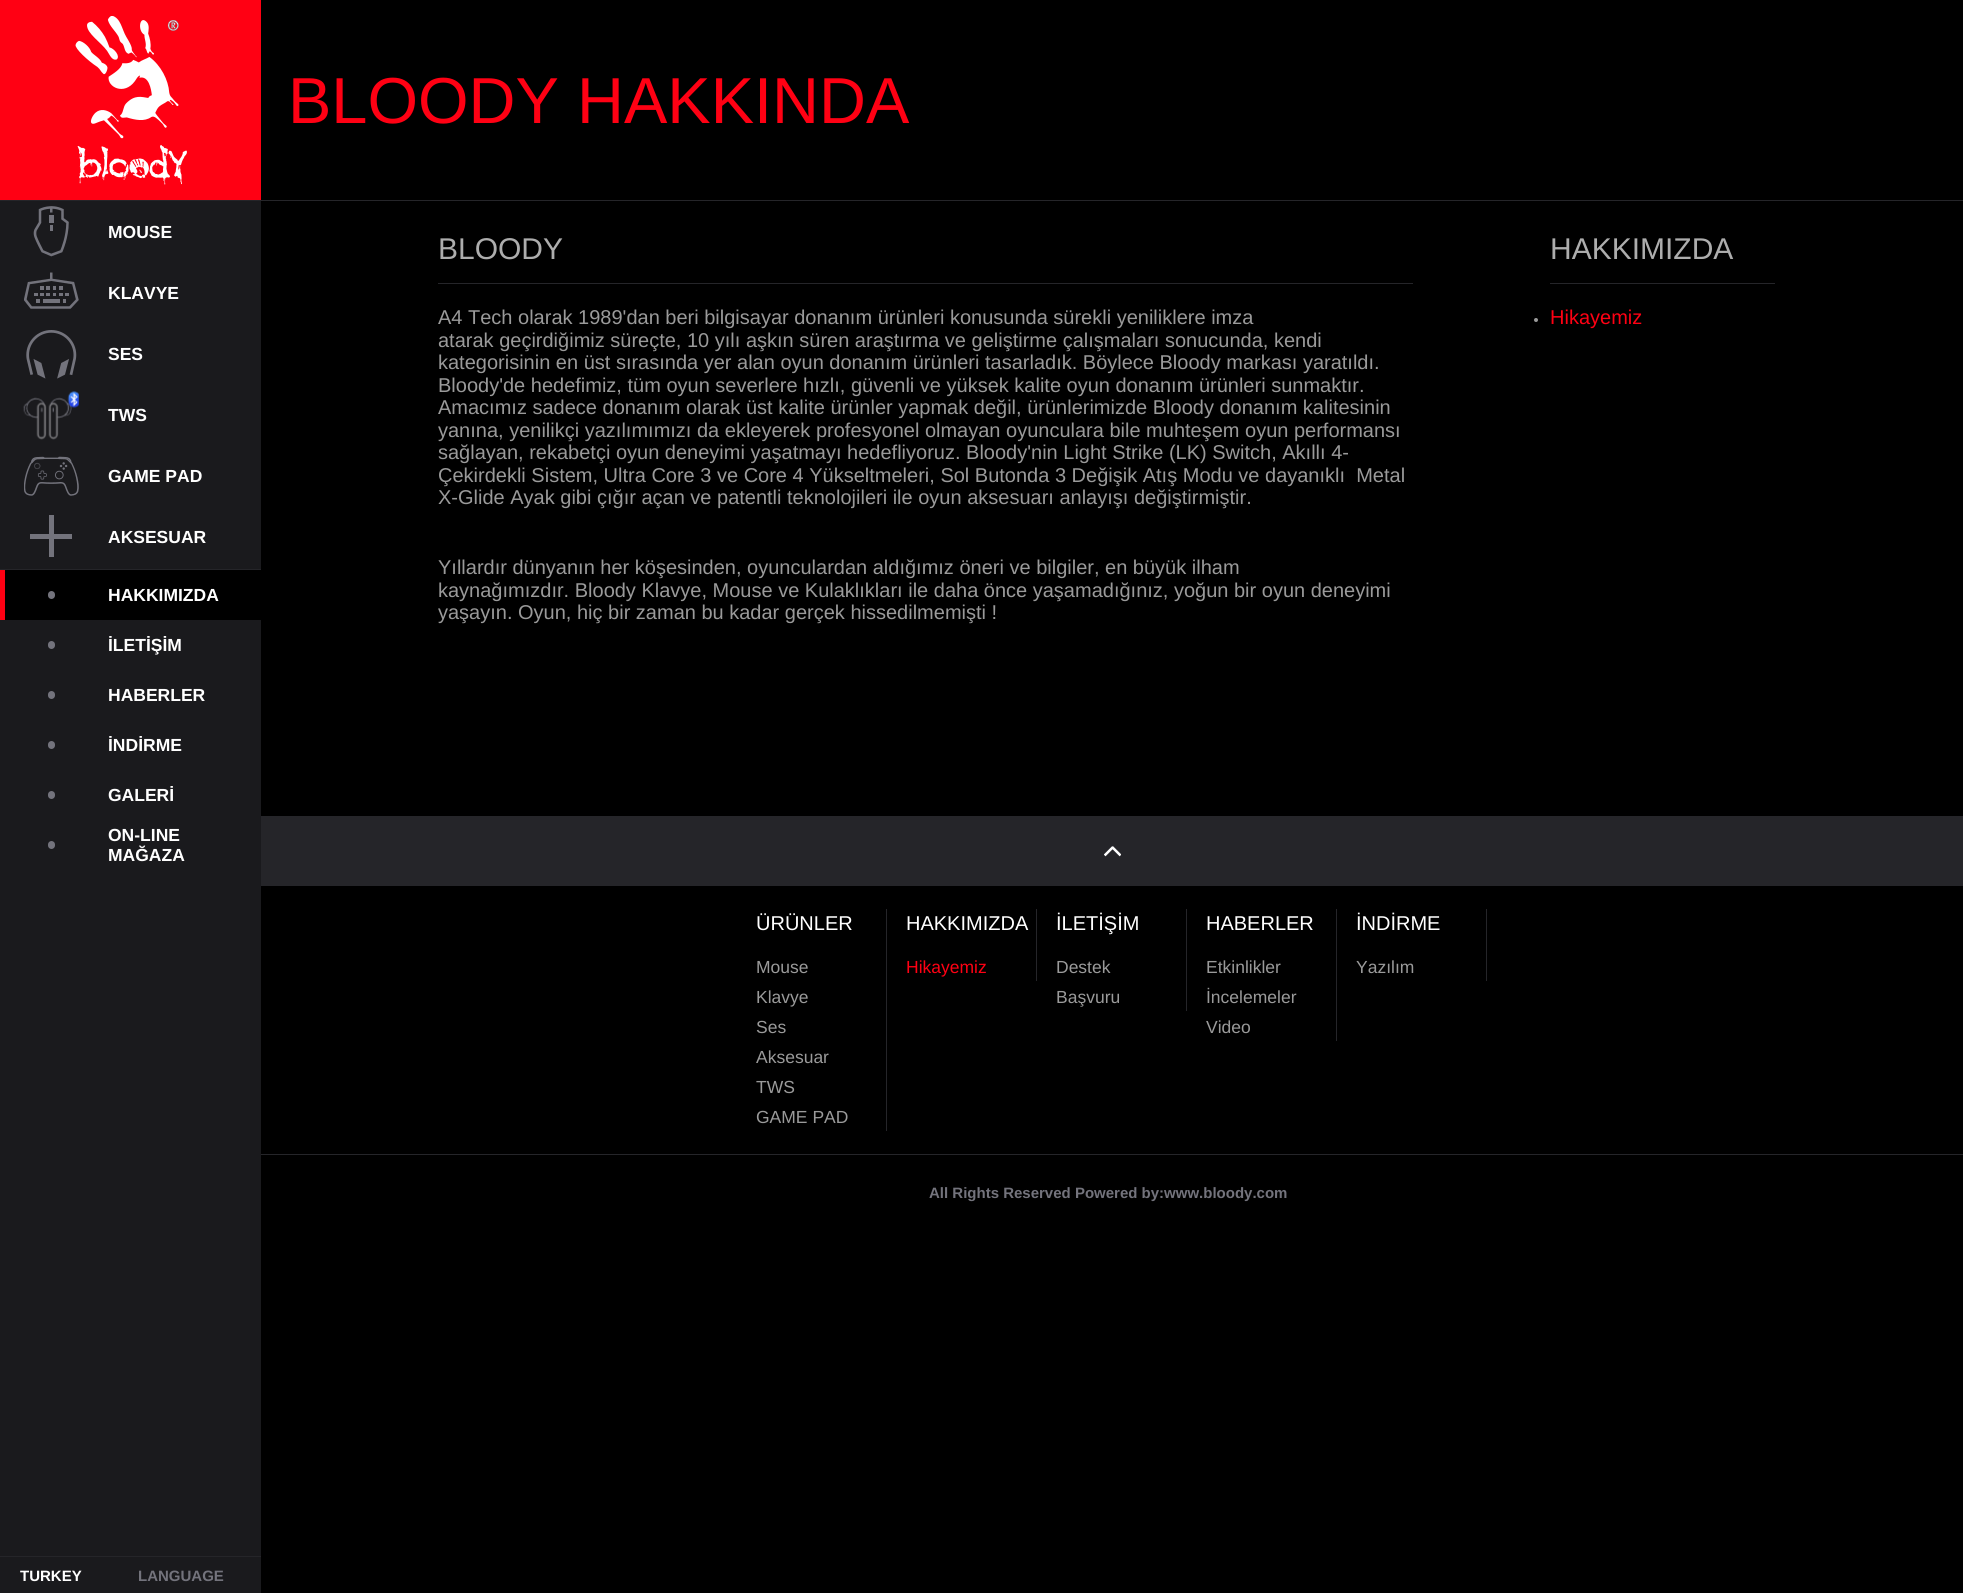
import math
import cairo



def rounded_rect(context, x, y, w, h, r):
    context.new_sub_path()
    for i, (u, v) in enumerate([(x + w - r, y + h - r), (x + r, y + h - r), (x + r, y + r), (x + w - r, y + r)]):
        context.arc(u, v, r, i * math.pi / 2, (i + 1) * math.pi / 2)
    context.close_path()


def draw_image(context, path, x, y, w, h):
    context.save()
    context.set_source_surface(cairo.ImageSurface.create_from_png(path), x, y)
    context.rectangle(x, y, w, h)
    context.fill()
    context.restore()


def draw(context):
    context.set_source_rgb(0, 0, 0)
    context.paint()
    context.set_source_rgb(1, 0, 19 / 255)
    context.rectangle(0, 0, 261, 200)
    context.fill()
    draw_image(context, "images/1.png", 75, 16, 112, 169)
    context.set_source_rgb(26 / 255, 26 / 255, 29 / 255)
    context.rectangle(0, 201, 261, 1392)
    context.fill()
    draw_image(context, "images/2.png", 33, 206, 36, 51)
    draw_image(context, "images/3.png", 24, 272, 55, 37)
    draw_image(context, "images/4.png", 26, 330, 51, 49)
    draw_image(context, "images/5.png", 23, 391, 56, 49)
    draw_image(context, "images/6.png", 24, 456, 55, 40)
    context.set_source_rgb(115 / 255, 115 / 255, 124 / 255)
    context.new_path()
    context.move_to(54, 515)
    context.line_to(49, 515)
    context.line_to(49, 534)
    context.line_to(30, 534)
    context.line_to(30, 539)
    context.line_to(49, 539)
    context.line_to(49, 557)
    context.line_to(54, 557)
    context.line_to(54, 539)
    context.line_to(72, 539)
    context.line_to(72, 534)
    context.line_to(54, 534)
    context.close_path()
    context.fill()
    context.set_source_rgb(37 / 255, 37 / 255, 41 / 255)
    context.rectangle(0, 569, 261, 1)
    context.fill()
    context.set_source_rgb(0, 0, 0)
    context.rectangle(5, 570, 256, 50)
    context.fill()
    context.set_source_rgb(1, 0, 19 / 255)
    context.rectangle(0, 570, 5, 50)
    context.fill()
    context.set_source_rgb(115 / 255, 115 / 255, 124 / 255)
    rounded_rect(context, 48, 591, 7, 8, 3.5)
    context.fill()
    rounded_rect(context, 48, 641, 7, 8, 3.5)
    context.fill()
    rounded_rect(context, 48, 691, 7, 8, 3.5)
    context.fill()
    rounded_rect(context, 48, 741, 7, 8, 3.5)
    context.fill()
    rounded_rect(context, 48, 791, 7, 8, 3.5)
    context.fill()
    rounded_rect(context, 48, 841, 7, 8, 3.5)
    context.fill()
    context.set_source_rgb(37 / 255, 37 / 255, 41 / 255)
    context.rectangle(0, 1556, 261, 1)
    context.fill()
    context.rectangle(0, 200, 1963, 1)
    context.fill()
    context.rectangle(438, 283, 975, 1)
    context.fill()
    context.rectangle(1550, 283, 225, 1)
    context.fill()
    context.set_source_rgb(154 / 255, 154 / 255, 154 / 255)
    context.arc(1536, 320, 2, 0, 2 * math.pi)
    context.fill()
    context.set_source_rgb(37 / 255, 37 / 255, 41 / 255)
    context.rectangle(261, 816, 1702, 70)
    context.fill()
    draw_image(context, "images/7.png", 1104, 846, 17, 11)
    context.rectangle(261, 1154, 1702, 1)
    context.fill()
    context.rectangle(886, 909, 1, 222)
    context.fill()
    context.rectangle(1036, 909, 1, 72)
    context.fill()
    context.rectangle(1186, 909, 1, 102)
    context.fill()
    context.rectangle(1336, 909, 1, 132)
    context.fill()
    context.rectangle(1486, 909, 1, 72)
    context.fill()
    context.select_font_face("Liberation Sans", cairo.FontSlant.NORMAL, cairo.FontWeight.BOLD)
    context.set_font_size(17.5)
    context.set_source_rgb(1, 1, 1)
    context.move_to(108, 238)
    context.show_text("MOUSE")
    context.move_to(108, 299)
    context.show_text("KLAVYE")
    context.move_to(108, 360)
    context.show_text("SES")
    context.move_to(108, 421)
    context.show_text("TWS")
    context.move_to(108, 482)
    context.show_text("GAME PAD")
    context.move_to(108, 543)
    context.show_text("AKSESUAR")
    context.move_to(108, 601)
    context.show_text("HAKKIMIZDA")
    context.move_to(108, 651)
    context.show_text("İLETİŞİM")
    context.move_to(108, 701)
    context.show_text("HABERLER")
    context.move_to(108, 751)
    context.show_text("İNDİRME")
    context.move_to(108, 801)
    context.show_text("GALERİ")
    context.move_to(108, 841)
    context.show_text("ON-LINE")
    context.move_to(108, 861)
    context.show_text("MAĞAZA")
    context.set_font_size(15)
    context.move_to(20, 1581)
    context.show_text("TURKEY")
    context.set_source_rgb(115 / 255, 115 / 255, 124 / 255)
    context.move_to(138, 1581)
    context.show_text("LANGUAGE")
    context.select_font_face("Liberation Sans")
    context.set_font_size(65)
    context.set_source_rgb(1, 0, 19 / 255)
    context.move_to(288, 123)
    context.show_text("BLOODY HAKKINDA")
    context.set_font_size(30)
    context.set_source_rgb(173 / 255, 173 / 255, 173 / 255)
    context.move_to(438, 259)
    context.show_text("BLOODY")
    context.set_font_size(20)
    context.set_source_rgb(154 / 255, 154 / 255, 154 / 255)
    context.move_to(438, 324)
    context.show_text("A4 Tech olarak 1989'dan beri bilgisayar donanım ürünleri konusunda sürekli yeniliklere imza")
    context.move_to(438, 347)
    context.show_text("atarak geçirdiğimiz süreçte, 10 yılı aşkın süren araştırma ve geliştirme çalışmaları sonucunda, kendi")
    context.move_to(438, 369)
    context.show_text("kategorisinin en üst sırasında yer alan oyun donanım ürünleri tasarladık. Böylece Bloody markası yaratıldı.")
    context.move_to(438, 392)
    context.show_text("Bloody'de hedefimiz, tüm oyun severlere hızlı, güvenli ve yüksek kalite oyun donanım ürünleri sunmaktır.")
    context.move_to(438, 414)
    context.show_text("Amacımız sadece donanım olarak üst kalite ürünler yapmak değil, ürünlerimizde Bloody donanım kalitesinin")
    context.move_to(438, 437)
    context.show_text("yanına, yenilikçi yazılımımızı da ekleyerek profesyonel olmayan oyunculara bile muhteşem oyun performansı")
    context.move_to(438, 459)
    context.show_text("sağlayan, rekabetçi oyun deneyimi yaşatmayı hedefliyoruz. Bloody'nin Light Strike (LK) Switch, Akıllı 4-")
    context.move_to(438, 482)
    context.show_text("Çekirdekli Sistem, Ultra Core 3 ve Core 4 Yükseltmeleri, Sol Butonda 3 Değişik Atış Modu ve dayanıklı  Metal")
    context.move_to(438, 504)
    context.show_text("X-Glide Ayak gibi çığır açan ve patentli teknolojileri ile oyun aksesuarı anlayışı değiştirmiştir.")
    context.move_to(438, 574)
    context.show_text("Yıllardır dünyanın her köşesinden, oyunculardan aldığımız öneri ve bilgiler, en büyük ilham")
    context.move_to(438, 597)
    context.show_text("kaynağımızdır. Bloody Klavye, Mouse ve Kulaklıkları ile daha önce yaşamadığınız, yoğun bir oyun deneyimi")
    context.move_to(438, 619)
    context.show_text("yaşayın. Oyun, hiç bir zaman bu kadar gerçek hissedilmemişti !")
    context.set_font_size(30)
    context.set_source_rgb(173 / 255, 173 / 255, 173 / 255)
    context.move_to(1550, 259)
    context.show_text("HAKKIMIZDA")
    context.set_font_size(20)
    context.set_source_rgb(1, 0, 19 / 255)
    context.move_to(1550, 324)
    context.show_text("Hikayemiz")
    context.set_source_rgb(1, 1, 1)
    context.move_to(756, 930)
    context.show_text("ÜRÜNLER")
    context.set_font_size(17.5)
    context.set_source_rgb(154 / 255, 154 / 255, 154 / 255)
    context.move_to(756, 973)
    context.show_text("Mouse")
    context.move_to(756, 1003)
    context.show_text("Klavye")
    context.move_to(756, 1033)
    context.show_text("Ses")
    context.move_to(756, 1063)
    context.show_text("Aksesuar")
    context.move_to(756, 1093)
    context.show_text("TWS")
    context.move_to(756, 1123)
    context.show_text("GAME PAD")
    context.set_font_size(20)
    context.set_source_rgb(1, 1, 1)
    context.move_to(906, 930)
    context.show_text("HAKKIMIZDA")
    context.set_font_size(17.5)
    context.set_source_rgb(1, 0, 19 / 255)
    context.move_to(906, 973)
    context.show_text("Hikayemiz")
    context.set_font_size(20)
    context.set_source_rgb(1, 1, 1)
    context.move_to(1056, 930)
    context.show_text("İLETİŞİM")
    context.set_font_size(17.5)
    context.set_source_rgb(154 / 255, 154 / 255, 154 / 255)
    context.move_to(1056, 973)
    context.show_text("Destek")
    context.move_to(1056, 1003)
    context.show_text("Başvuru")
    context.set_font_size(20)
    context.set_source_rgb(1, 1, 1)
    context.move_to(1206, 930)
    context.show_text("HABERLER")
    context.set_font_size(17.5)
    context.set_source_rgb(154 / 255, 154 / 255, 154 / 255)
    context.move_to(1206, 973)
    context.show_text("Etkinlikler")
    context.move_to(1206, 1003)
    context.show_text("İncelemeler")
    context.move_to(1206, 1033)
    context.show_text("Video")
    context.set_font_size(20)
    context.set_source_rgb(1, 1, 1)
    context.move_to(1356, 930)
    context.show_text("İNDİRME")
    context.set_font_size(17.5)
    context.set_source_rgb(154 / 255, 154 / 255, 154 / 255)
    context.move_to(1356, 973)
    context.show_text("Yazılım")
    context.select_font_face("Liberation Sans", cairo.FontSlant.NORMAL, cairo.FontWeight.BOLD)
    context.set_font_size(15)
    context.set_source_rgb(115 / 255, 115 / 255, 124 / 255)
    context.move_to(929, 1198)
    context.show_text("All Rights Reserved Powered by:www.bloody.com")


surface = cairo.ImageSurface(cairo.Format.RGB24, 1963, 1593)
context = cairo.Context(surface)
options = cairo.FontOptions()
options.set_hint_metrics(cairo.HintMetrics.OFF)
options.set_hint_style(cairo.HintStyle.NONE)
context.set_font_options(options)
context.set_miter_limit(4)
draw(context)
surface.write_to_png("out.png")
